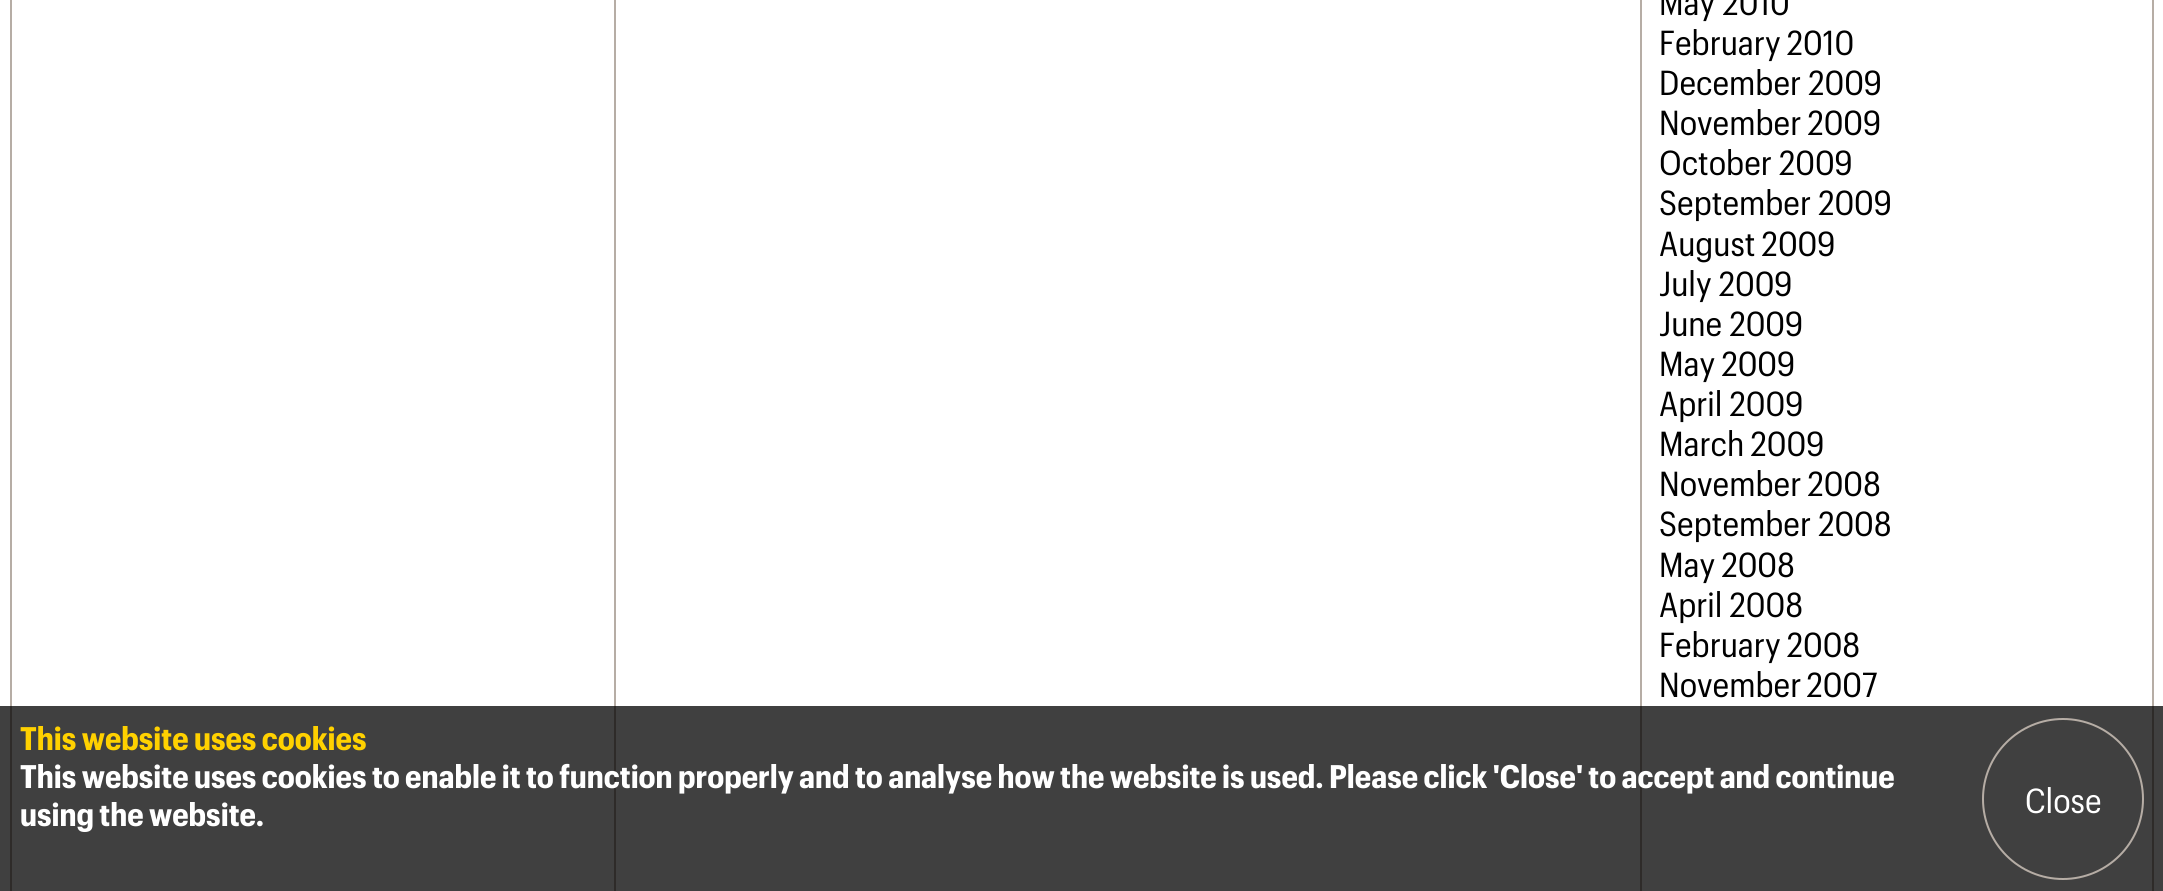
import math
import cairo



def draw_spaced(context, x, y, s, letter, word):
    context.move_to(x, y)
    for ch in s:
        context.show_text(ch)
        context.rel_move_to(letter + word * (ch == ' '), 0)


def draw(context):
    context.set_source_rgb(1, 1, 1)
    context.paint()
    context.set_source_rgb(182 / 255, 173 / 255, 165 / 255)
    context.rectangle(2152, 0, 2, 891)
    context.fill()
    context.rectangle(10, 0, 2, 891)
    context.fill()
    context.rectangle(614, 0, 2, 891)
    context.fill()
    context.new_path()
    context.move_to(1640, 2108)
    context.line_to(1640, -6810)
    context.line_to(1642, -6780)
    context.line_to(1642, 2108)
    context.close_path()
    context.fill()
    context.set_source_rgba(0, 0, 0, 0.75)
    context.rectangle(0, 706, 2163, 185)
    context.fill()
    context.arc(2063, 799, 80, 0, 2 * math.pi)
    context.set_source_rgb(182 / 255, 173 / 255, 165 / 255)
    context.stroke()
    context.select_font_face("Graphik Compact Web")
    context.set_font_size(34)
    context.set_source_rgb(0, 0, 0)
    context.move_to(1659, 15)
    context.show_text("May 2010")
    draw_spaced(context, 1659, 55, "February 2010", 0, -1)
    context.move_to(1659, 95)
    context.show_text("December 2009")
    draw_spaced(context, 1659, 135, "November 2009", 0, -1)
    context.move_to(1659, 175)
    context.show_text("October 2009")
    context.move_to(1659, 215)
    context.show_text("September 2009")
    draw_spaced(context, 1659, 256, "August 2009", 0, -1)
    context.move_to(1659, 296)
    context.show_text("July 2009")
    context.move_to(1659, 336)
    context.show_text("June 2009")
    draw_spaced(context, 1659, 376, "May 2009", 0, -1)
    context.move_to(1659, 416)
    context.show_text("April 2009")
    draw_spaced(context, 1659, 456, "March 2009", 0, -1)
    draw_spaced(context, 1659, 496, "November 2008", 0, -1)
    context.move_to(1659, 536)
    context.show_text("September 2008")
    draw_spaced(context, 1659, 577, "May 2008", 0, -1)
    context.move_to(1659, 617)
    context.show_text("April 2008")
    draw_spaced(context, 1659, 657, "February 2008", 0, -1)
    draw_spaced(context, 1659, 697, "November 2007", 0, -2)
    context.select_font_face("Graphik Compact Web", cairo.FontSlant.NORMAL, cairo.FontWeight.BOLD)
    context.set_font_size(32)
    context.set_source_rgb(1, 209 / 255, 0)
    context.move_to(20, 750)
    context.show_text("This website uses cookies")
    context.set_source_rgb(1, 1, 1)
    context.move_to(20, 788)
    context.show_text("This website uses cookies to enable it to function properly and to analyse how the website is used. Please click 'Close' to accept and continue")
    context.move_to(20, 826)
    context.show_text("using the website.")
    context.select_font_face("Graphik Compact Web")
    context.set_font_size(34)
    context.move_to(2025, 813)
    context.show_text("Close")


surface = cairo.ImageSurface(cairo.Format.RGB24, 2163, 891)
context = cairo.Context(surface)
options = cairo.FontOptions()
options.set_hint_metrics(cairo.HintMetrics.OFF)
options.set_hint_style(cairo.HintStyle.NONE)
context.set_font_options(options)
context.set_miter_limit(4)
draw(context)
surface.write_to_png("out.png")
